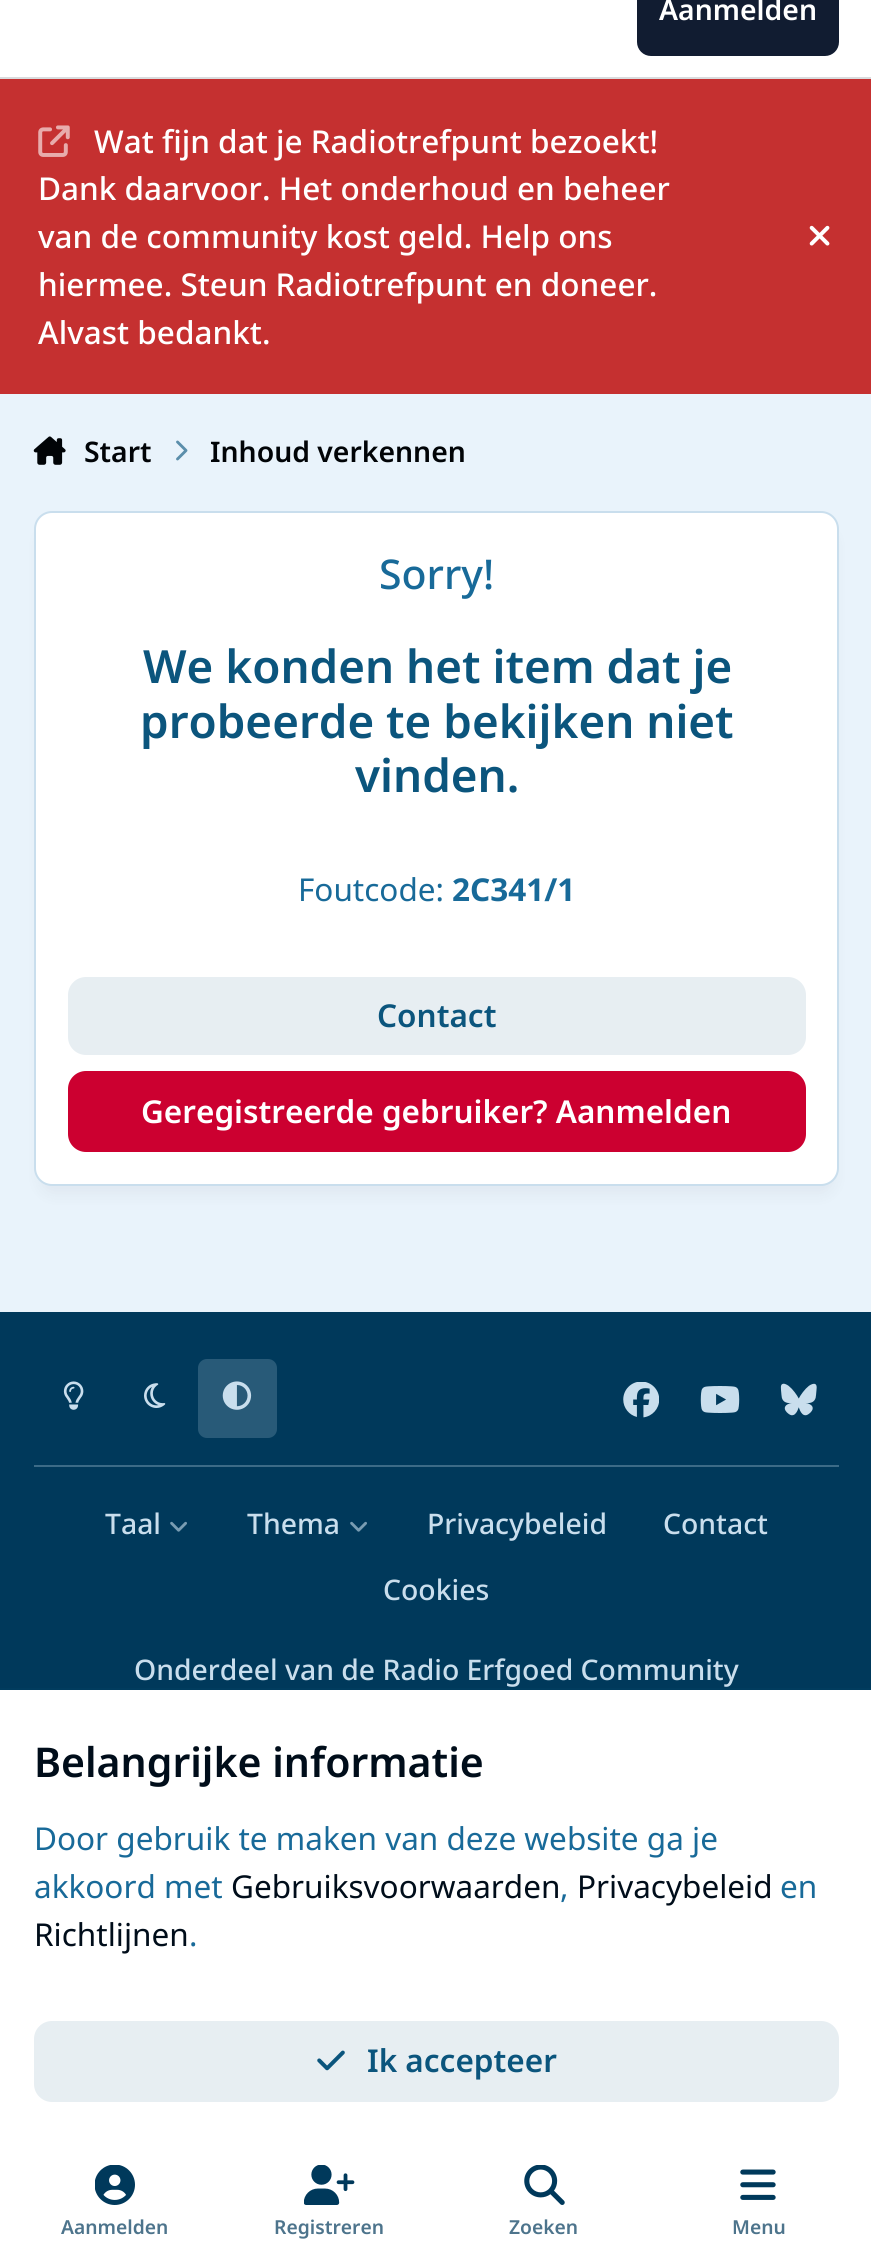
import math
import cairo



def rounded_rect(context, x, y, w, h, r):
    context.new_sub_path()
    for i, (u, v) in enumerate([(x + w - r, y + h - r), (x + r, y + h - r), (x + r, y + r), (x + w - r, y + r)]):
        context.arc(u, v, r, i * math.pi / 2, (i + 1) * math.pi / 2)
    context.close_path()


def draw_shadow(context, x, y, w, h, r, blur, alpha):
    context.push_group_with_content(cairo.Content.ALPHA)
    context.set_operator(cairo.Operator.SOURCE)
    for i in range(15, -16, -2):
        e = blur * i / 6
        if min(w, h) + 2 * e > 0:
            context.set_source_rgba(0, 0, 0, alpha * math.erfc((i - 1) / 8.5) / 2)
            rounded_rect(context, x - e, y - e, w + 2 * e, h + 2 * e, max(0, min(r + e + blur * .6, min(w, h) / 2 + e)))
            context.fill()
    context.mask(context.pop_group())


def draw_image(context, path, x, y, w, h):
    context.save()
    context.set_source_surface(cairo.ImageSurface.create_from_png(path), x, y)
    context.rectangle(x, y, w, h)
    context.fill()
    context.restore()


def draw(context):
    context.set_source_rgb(233 / 255, 243 / 255, 251 / 255)
    context.paint()
    context.set_source_rgb(1, 1, 1)
    context.rectangle(0, 0, 871, 77)
    context.fill()
    context.set_source_rgb(217 / 255, 219 / 255, 221 / 255)
    context.rectangle(0, 77, 871, 2)
    context.fill()
    context.set_source_rgb(17 / 255, 28 / 255, 49 / 255)
    rounded_rect(context, 637, -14, 202, 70, 14)
    context.fill()
    context.set_source_rgb(197 / 255, 48 / 255, 48 / 255)
    context.rectangle(0, 79, 871, 315)
    context.fill()
    draw_image(context, "images/1.png", 38, 125, 32, 32)
    draw_image(context, "images/2.png", 809, 225, 21, 21)
    draw_image(context, "images/3.png", 33, 436, 33, 29)
    draw_image(context, "images/4.png", 176, 440, 12, 21)
    context.set_source_rgb(0, 4 / 255, 16 / 255)
    draw_shadow(context, 41, 531, 792, 662, 11, 8, 0.05)
    context.set_source_rgb(1, 1, 1)
    rounded_rect(context, 35, 512, 803, 673, 17)
    context.fill_preserve()
    context.set_source_rgb(201 / 255, 222 / 255, 237 / 255)
    context.stroke()
    context.set_source_rgb(231 / 255, 238 / 255, 242 / 255)
    rounded_rect(context, 68, 977, 738, 78, 18)
    context.fill()
    context.set_source_rgb(204 / 255, 0, 48 / 255)
    rounded_rect(context, 68, 1071, 738, 81, 18)
    context.fill()
    context.set_source_rgb(0, 57 / 255, 91 / 255)
    context.rectangle(0, 1312, 871, 376)
    context.fill()
    draw_image(context, "images/5.png", 63, 1381, 21, 29)
    draw_image(context, "images/6.png", 144, 1383, 22, 25)
    context.set_source_rgb(40 / 255, 90 / 255, 120 / 255)
    rounded_rect(context, 198, 1359, 79, 79, 9)
    context.fill()
    draw_image(context, "images/7.png", 222, 1381, 30, 29)
    draw_image(context, "images/8.png", 623, 1382, 36, 36)
    draw_image(context, "images/9.png", 700, 1386, 40, 27)
    draw_image(context, "images/10.png", 780, 1383, 37, 33)
    context.set_source_rgb(60 / 255, 107 / 255, 135 / 255)
    context.rectangle(34, 1465, 805, 2)
    context.fill()
    draw_image(context, "images/11.png", 170, 1521, 17, 11)
    draw_image(context, "images/11.png", 350, 1521, 17, 11)
    context.set_source_rgb(1 / 255, 60 / 255, 94 / 255)
    context.rectangle(0, 1688, 871, 2)
    context.fill()
    context.set_source_rgb(1, 1, 1)
    context.rectangle(0, 1690, 871, 574)
    context.fill()
    context.set_source_rgb(231 / 255, 238 / 255, 242 / 255)
    rounded_rect(context, 34, 2021, 805, 81, 18)
    context.fill()
    draw_image(context, "images/12.png", 317, 2050, 28, 21)
    draw_image(context, "images/13.png", 95, 2165, 40, 40)
    draw_image(context, "images/14.png", 304, 2165, 51, 40)
    draw_image(context, "images/15.png", 524, 2165, 41, 40)
    draw_image(context, "images/16.png", 740, 2169, 36, 31)
    context.select_font_face("Noto Sans SemiBold")
    context.set_font_size(28.35)
    context.set_source_rgb(1, 1, 1)
    context.move_to(659, 20)
    context.show_text("Aanmelden")
    context.select_font_face("Noto Sans Medium")
    context.set_font_size(31.5)
    context.move_to(94, 153)
    context.show_text("Wat fijn dat je Radiotrefpunt bezoekt!")
    context.move_to(38, 200)
    context.show_text("Dank daarvoor. Het onderhoud en beheer")
    context.move_to(38, 248)
    context.show_text("van de community kost geld. Help ons")
    context.move_to(38, 296)
    context.show_text("hiermee. Steun Radiotrefpunt en doneer.")
    context.move_to(38, 344)
    context.show_text("Alvast bedankt.")
    context.select_font_face("Noto Sans SemiBold")
    context.set_font_size(28.35)
    context.set_source_rgb(1 / 255, 4 / 255, 7 / 255)
    context.move_to(84, 462)
    context.show_text("Start")
    context.move_to(210, 462)
    context.show_text("Inhoud verkennen")
    context.select_font_face("Noto Sans Medium")
    context.set_font_size(41)
    context.set_source_rgb(24 / 255, 106 / 255, 153 / 255)
    context.move_to(379, 589)
    context.show_text("Sorry!")
    context.select_font_face("Noto Sans SemiBold")
    context.set_font_size(45.75)
    context.set_source_rgb(11 / 255, 85 / 255, 125 / 255)
    context.move_to(143, 683)
    context.show_text("We konden het item dat je")
    context.move_to(140, 738)
    context.show_text("probeerde te bekijken niet")
    context.move_to(355, 792)
    context.show_text("vinden.")
    context.select_font_face("Noto Sans")
    context.set_font_size(31.5)
    context.set_source_rgb(24 / 255, 106 / 255, 153 / 255)
    context.move_to(298, 901)
    context.show_text("Foutcode:")
    context.select_font_face("Noto Sans", cairo.FontSlant.NORMAL, cairo.FontWeight.BOLD)
    context.move_to(452, 901)
    context.show_text("2C341/1")
    context.select_font_face("Noto Sans SemiBold")
    context.set_source_rgb(11 / 255, 85 / 255, 125 / 255)
    context.move_to(377, 1027)
    context.show_text("Contact")
    context.set_source_rgb(1, 1, 1)
    context.move_to(141, 1123)
    context.show_text("Geregistreerde gebruiker? Aanmelden")
    context.select_font_face("Noto Sans Medium")
    context.set_font_size(28.35)
    context.set_source_rgb(201 / 255, 222 / 255, 237 / 255)
    context.move_to(105, 1534)
    context.show_text("Taal")
    context.move_to(247, 1534)
    context.show_text("Thema")
    context.move_to(427, 1534)
    context.show_text("Privacybeleid")
    context.move_to(663, 1534)
    context.show_text("Contact")
    context.move_to(383, 1600)
    context.show_text("Cookies")
    context.move_to(134, 1680)
    context.show_text("Onderdeel van de Radio Erfgoed Community")
    context.select_font_face("Noto Sans SemiBold")
    context.set_font_size(41)
    context.set_source_rgb(0, 13 / 255, 26 / 255)
    context.move_to(34, 1777)
    context.show_text("Belangrijke informatie")
    context.select_font_face("Noto Sans")
    context.set_font_size(31.5)
    context.set_source_rgb(24 / 255, 106 / 255, 153 / 255)
    context.move_to(34, 1850)
    context.show_text("Door gebruik te maken van deze website ga je")
    context.move_to(34, 1898)
    context.show_text("akkoord met")
    context.set_source_rgb(0, 13 / 255, 26 / 255)
    context.move_to(231, 1898)
    context.show_text("Gebruiksvoorwaarden")
    context.set_source_rgb(24 / 255, 106 / 255, 153 / 255)
    context.move_to(560, 1898)
    context.show_text(",")
    context.set_source_rgb(0, 13 / 255, 26 / 255)
    context.move_to(577, 1898)
    context.show_text("Privacybeleid")
    context.set_source_rgb(24 / 255, 106 / 255, 153 / 255)
    context.move_to(780, 1898)
    context.show_text("en")
    context.set_source_rgb(0, 13 / 255, 26 / 255)
    context.move_to(34, 1946)
    context.show_text("Richtlijnen")
    context.set_source_rgb(24 / 255, 106 / 255, 153 / 255)
    context.move_to(189, 1946)
    context.show_text(".")
    context.select_font_face("Noto Sans SemiBold")
    context.set_source_rgb(11 / 255, 85 / 255, 125 / 255)
    context.move_to(367, 2072)
    context.show_text("Ik accepteer")
    context.set_font_size(19.25)
    context.set_source_rgb(77 / 255, 116 / 255, 140 / 255)
    context.move_to(61, 2234)
    context.show_text("Aanmelden")
    context.move_to(274, 2234)
    context.show_text("Registreren")
    context.move_to(509, 2234)
    context.show_text("Zoeken")
    context.move_to(732, 2234)
    context.show_text("Menu")


surface = cairo.ImageSurface(cairo.Format.RGB24, 871, 2264)
context = cairo.Context(surface)
options = cairo.FontOptions()
options.set_hint_metrics(cairo.HintMetrics.OFF)
options.set_hint_style(cairo.HintStyle.NONE)
context.set_font_options(options)
context.set_miter_limit(4)
draw(context)
surface.write_to_png("out.png")
